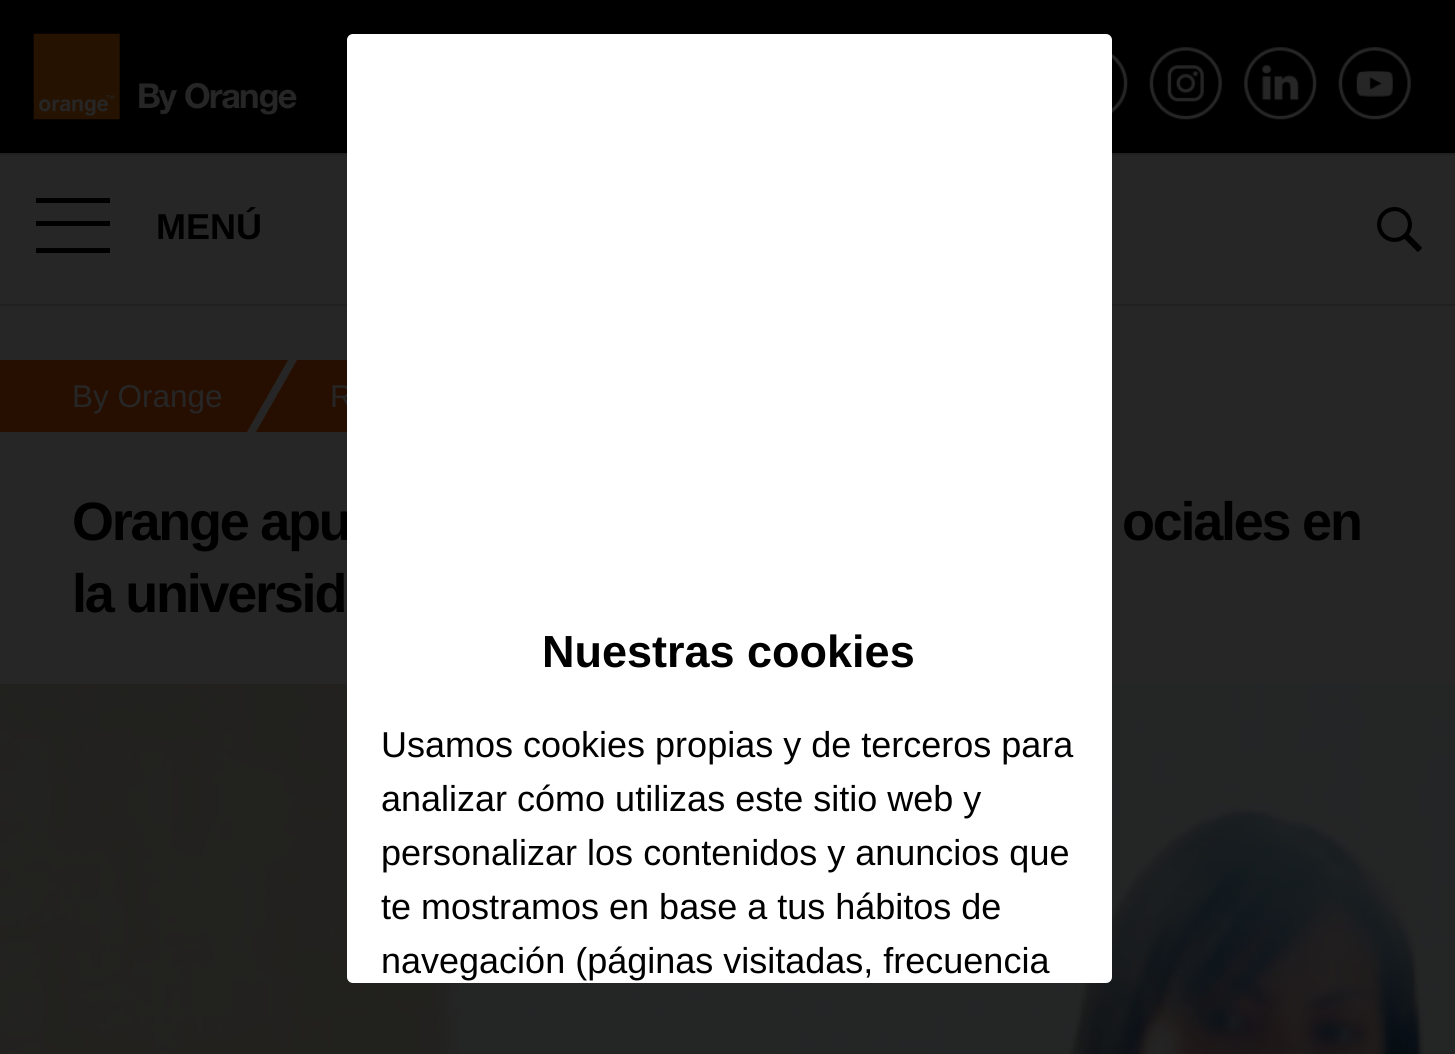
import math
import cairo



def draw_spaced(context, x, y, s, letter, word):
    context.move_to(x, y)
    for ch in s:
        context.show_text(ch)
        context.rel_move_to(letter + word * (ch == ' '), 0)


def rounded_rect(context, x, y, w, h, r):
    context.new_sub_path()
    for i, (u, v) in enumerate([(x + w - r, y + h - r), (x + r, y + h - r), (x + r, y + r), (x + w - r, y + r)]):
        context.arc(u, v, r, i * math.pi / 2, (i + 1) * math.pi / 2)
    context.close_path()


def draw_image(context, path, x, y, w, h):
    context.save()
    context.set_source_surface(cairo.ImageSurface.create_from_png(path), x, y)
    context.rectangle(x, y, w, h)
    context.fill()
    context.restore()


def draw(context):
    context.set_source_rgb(38 / 255, 38 / 255, 38 / 255)
    context.paint()
    context.set_source_rgb(0, 0, 0)
    context.rectangle(0, 0, 1455, 153)
    context.fill()
    draw_image(context, "images/1.png", 33, 33, 264, 87)
    draw_image(context, "images/2.png", 1112, 53, 16, 61)
    draw_image(context, "images/3.png", 1149, 47, 73, 73)
    draw_image(context, "images/4.png", 1244, 47, 73, 73)
    draw_image(context, "images/5.png", 1338, 47, 73, 73)
    context.set_source_rgb(33 / 255, 33 / 255, 33 / 255)
    context.rectangle(0, 153, 1455, 2)
    context.fill()
    context.rectangle(0, 304, 1455, 2)
    context.fill()
    context.set_source_rgb(0, 0, 0)
    context.rectangle(36, 248, 74, 5)
    context.fill()
    context.rectangle(36, 198, 74, 5)
    context.fill()
    context.rectangle(36, 221, 74, 5)
    context.fill()
    draw_image(context, "images/6.png", 1377, 207, 45, 45)
    context.set_source_rgb(38 / 255, 15 / 255, 0)
    context.new_path()
    context.move_to(-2, 360)
    context.line_to(288, 360)
    context.line_to(247, 432)
    context.line_to(-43, 432)
    context.close_path()
    context.fill()
    context.new_path()
    context.move_to(297, 360)
    context.line_to(463, 360)
    context.line_to(421, 432)
    context.line_to(256, 432)
    context.close_path()
    context.fill()
    draw_image(context, "images/7.png", 0, 684, 1455, 370)
    context.select_font_face("Liberation Sans", cairo.FontSlant.NORMAL, cairo.FontWeight.BOLD)
    context.set_font_size(36)
    context.set_source_rgb(0, 0, 0)
    context.move_to(156, 239)
    context.show_text("MENÚ")
    context.select_font_face("Liberation Sans")
    context.set_font_size(31.5)
    context.set_source_rgb(38 / 255, 38 / 255, 38 / 255)
    context.move_to(72, 407)
    context.show_text("By Orange")
    context.move_to(330, 407)
    context.show_text("R")
    context.select_font_face("Liberation Sans", cairo.FontSlant.NORMAL, cairo.FontWeight.BOLD)
    context.set_font_size(54)
    context.set_source_rgb(0, 0, 0)
    draw_spaced(context, 72, 540, "Orange apu", -2.25, 0)
    draw_spaced(context, 1122, 540, "ociales en", -2.25, 0)
    draw_spaced(context, 72, 612, "la universid", -2.25, 0)
    context.set_source_rgb(1, 1, 1)
    rounded_rect(context, 347, 34, 765, 949, 6)
    context.fill()
    context.set_font_size(45)
    context.set_source_rgb(0, 0, 0)
    context.move_to(542, 667)
    context.show_text("Nuestras cookies")
    context.select_font_face("Liberation Sans")
    context.set_font_size(36)
    context.move_to(381, 757)
    context.show_text("Usamos cookies propias y de terceros para")
    context.move_to(381, 811)
    context.show_text("analizar cómo utilizas este sitio web y")
    context.move_to(381, 865)
    context.show_text("personalizar los contenidos y anuncios que")
    context.move_to(381, 919)
    context.show_text("te mostramos en base a tus hábitos de")
    context.move_to(381, 973)
    context.show_text("navegación (páginas visitadas, frecuencia")


surface = cairo.ImageSurface(cairo.Format.RGB24, 1455, 1054)
context = cairo.Context(surface)
options = cairo.FontOptions()
options.set_hint_metrics(cairo.HintMetrics.OFF)
options.set_hint_style(cairo.HintStyle.NONE)
context.set_font_options(options)
context.set_miter_limit(4)
draw(context)
surface.write_to_png("out.png")
